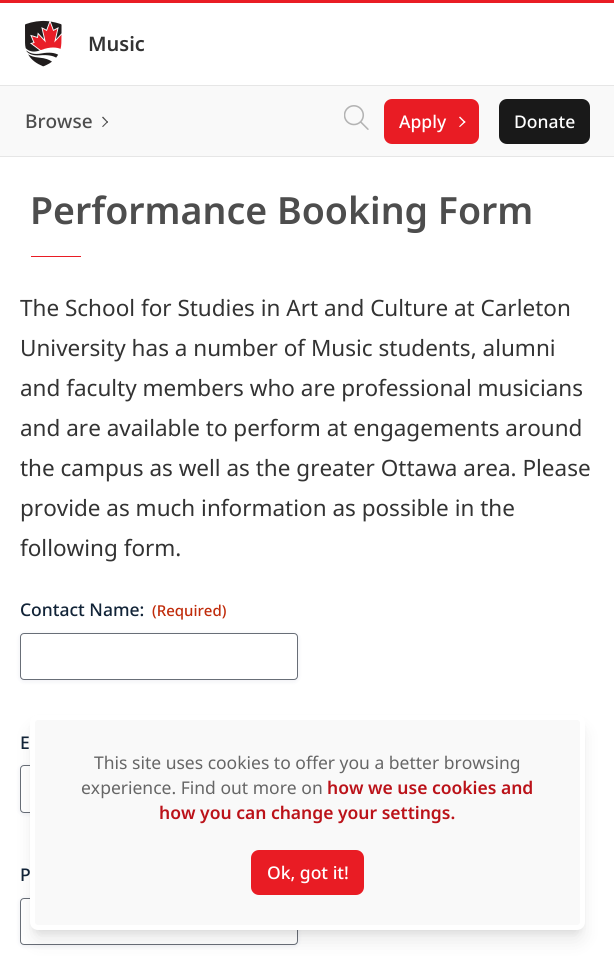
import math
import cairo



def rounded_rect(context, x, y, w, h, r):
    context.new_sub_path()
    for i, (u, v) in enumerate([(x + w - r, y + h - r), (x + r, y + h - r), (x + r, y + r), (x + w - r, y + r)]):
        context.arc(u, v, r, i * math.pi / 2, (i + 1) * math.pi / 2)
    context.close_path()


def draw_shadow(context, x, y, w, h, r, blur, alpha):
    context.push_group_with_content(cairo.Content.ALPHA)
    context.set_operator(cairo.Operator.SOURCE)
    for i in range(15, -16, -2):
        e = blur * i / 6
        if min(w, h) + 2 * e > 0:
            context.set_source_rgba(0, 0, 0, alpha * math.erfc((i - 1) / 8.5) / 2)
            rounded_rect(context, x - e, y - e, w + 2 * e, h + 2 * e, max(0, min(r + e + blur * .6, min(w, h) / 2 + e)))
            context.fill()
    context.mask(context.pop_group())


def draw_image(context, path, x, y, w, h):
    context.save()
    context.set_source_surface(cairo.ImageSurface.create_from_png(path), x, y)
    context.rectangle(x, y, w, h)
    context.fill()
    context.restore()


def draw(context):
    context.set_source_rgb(1, 1, 1)
    context.paint()
    context.set_source_rgb(233 / 255, 28 / 255, 36 / 255)
    context.rectangle(0, 0, 614, 3)
    context.fill()
    context.set_source_rgb(230 / 255, 230 / 255, 230 / 255)
    context.rectangle(0, 156, 614, 1)
    context.fill()
    draw_image(context, "images/1.png", 25, 20, 37, 47)
    context.set_source_rgb(249 / 255, 249 / 255, 249 / 255)
    context.rectangle(0, 86, 614, 70)
    context.fill()
    context.set_source_rgb(230 / 255, 230 / 255, 230 / 255)
    context.rectangle(0, 85, 614, 1)
    context.fill()
    context.set_source_rgb(77 / 255, 77 / 255, 77 / 255)
    context.new_path()
    context.move_to(108, 122)
    context.line_to(103, 127)
    context.line_to(102, 126.5)
    context.line_to(107.5, 121)
    context.close_path()
    context.fill()
    context.new_path()
    context.move_to(108, 122)
    context.line_to(107.5, 123)
    context.line_to(102, 117.5)
    context.line_to(103, 116.5)
    context.close_path()
    context.fill()
    draw_image(context, "images/2.png", 344, 105, 25, 25)
    context.set_source_rgb(233 / 255, 28 / 255, 36 / 255)
    rounded_rect(context, 384, 99, 95, 45, 8)
    context.fill()
    context.set_source_rgb(1, 1, 1)
    context.new_path()
    context.move_to(465.5, 122)
    context.line_to(460, 127)
    context.line_to(459, 126.5)
    context.line_to(464.5, 121)
    context.close_path()
    context.fill()
    context.new_path()
    context.move_to(465.5, 122)
    context.line_to(464.5, 123)
    context.line_to(459, 117.5)
    context.line_to(460, 116.5)
    context.close_path()
    context.fill()
    context.set_source_rgb(25 / 255, 25 / 255, 25 / 255)
    rounded_rect(context, 499, 99, 91, 45, 8)
    context.fill()
    context.set_source_rgb(233 / 255, 28 / 255, 36 / 255)
    context.rectangle(31, 256, 50, 1)
    context.fill()
    context.set_source_rgb(18 / 255, 25 / 255, 97 / 255)
    draw_shadow(context, 20, 634, 278, 47, 4, 2.5, 0.08)
    context.set_source_rgb(1, 1, 1)
    rounded_rect(context, 20.5, 633.5, 277, 46, 3.5)
    context.fill_preserve()
    context.set_source_rgb(104 / 255, 110 / 255, 119 / 255)
    context.set_line_width(1)
    context.stroke()
    context.set_source_rgb(18 / 255, 25 / 255, 97 / 255)
    draw_shadow(context, 20, 766, 278, 48, 4, 2.5, 0.08)
    context.set_source_rgb(1, 1, 1)
    rounded_rect(context, 20.5, 765.5, 277, 47, 3.5)
    context.fill_preserve()
    context.set_source_rgb(104 / 255, 110 / 255, 119 / 255)
    context.stroke()
    context.set_source_rgb(18 / 255, 25 / 255, 97 / 255)
    draw_shadow(context, 20, 899, 278, 47, 4, 2.5, 0.08)
    context.set_source_rgb(1, 1, 1)
    rounded_rect(context, 20.5, 898.5, 277, 46, 3.5)
    context.fill_preserve()
    context.set_source_rgb(104 / 255, 110 / 255, 119 / 255)
    context.stroke()
    context.set_source_rgb(0, 0, 0)
    draw_shadow(context, 35, 725, 545, 205, 2.5, 4, 0.1)
    draw_shadow(context, 34, 731, 547, 208, 4, 9.5, 0.1)
    context.set_source_rgb(249 / 255, 249 / 255, 249 / 255)
    rounded_rect(context, 32.5, 717.5, 550, 210, 5.5)
    context.fill_preserve()
    context.set_source_rgb(1, 1, 1)
    context.set_line_width(5)
    context.stroke()
    context.set_source_rgb(233 / 255, 28 / 255, 36 / 255)
    rounded_rect(context, 251, 850, 113, 45, 8)
    context.fill()
    context.select_font_face("Noto Sans SemiBold")
    context.set_font_size(20)
    context.set_source_rgb(51 / 255, 51 / 255, 51 / 255)
    context.move_to(88, 51)
    context.show_text("Music")
    context.select_font_face("Noto Sans Medium")
    context.set_font_size(19)
    context.set_source_rgb(77 / 255, 77 / 255, 77 / 255)
    context.move_to(25, 128)
    context.show_text("Browse")
    context.set_font_size(17.5)
    context.set_source_rgb(1, 1, 1)
    context.move_to(399, 128)
    context.show_text("Apply")
    context.move_to(514, 128)
    context.show_text("Donate")
    context.select_font_face("Noto Sans SemiBold")
    context.set_font_size(37.5)
    context.set_source_rgb(77 / 255, 77 / 255, 77 / 255)
    context.move_to(30, 224)
    context.show_text("Performance Booking Form")
    context.select_font_face("Noto Sans")
    context.set_font_size(22.5)
    context.set_source_rgb(51 / 255, 51 / 255, 51 / 255)
    context.move_to(20, 316)
    context.show_text("The School for Studies in Art and Culture at Carleton")
    context.move_to(20, 356)
    context.show_text("University has a number of Music students, alumni")
    context.move_to(20, 396)
    context.show_text("and faculty members who are professional musicians")
    context.move_to(20, 436)
    context.show_text("and are available to perform at engagements around")
    context.move_to(20, 476)
    context.show_text("the campus as well as the greater Ottawa area. Please")
    context.move_to(20, 516)
    context.show_text("provide as much information as possible in the")
    context.move_to(20, 556)
    context.show_text("following form.")
    context.select_font_face("Noto Sans Medium")
    context.set_font_size(17.5)
    context.set_source_rgb(17 / 255, 35 / 255, 55 / 255)
    context.move_to(20, 616)
    context.show_text("Contact Name:")
    context.set_font_size(15)
    context.set_source_rgb(192 / 255, 43 / 255, 10 / 255)
    context.move_to(152, 616)
    context.show_text("(Required)")
    context.set_font_size(17.5)
    context.set_source_rgb(17 / 255, 35 / 255, 55 / 255)
    context.move_to(20, 749)
    context.show_text("E")
    context.move_to(20, 881)
    context.show_text("P")
    context.select_font_face("Noto Sans")
    context.set_source_rgb(102 / 255, 102 / 255, 102 / 255)
    context.move_to(94, 769)
    context.show_text("This site uses cookies to offer you a better browsing")
    context.move_to(81, 794)
    context.show_text("experience. Find out more on")
    context.select_font_face("Noto Sans SemiBold")
    context.set_source_rgb(187 / 255, 18 / 255, 25 / 255)
    context.move_to(327, 794)
    context.show_text("how we use cookies and")
    context.move_to(159, 819)
    context.show_text("how you can change your settings.")
    context.select_font_face("Noto Sans Medium")
    context.set_source_rgb(1, 1, 1)
    context.move_to(267, 879)
    context.show_text("Ok, got it!")


surface = cairo.ImageSurface(cairo.Format.RGB24, 614, 960)
context = cairo.Context(surface)
options = cairo.FontOptions()
options.set_hint_metrics(cairo.HintMetrics.OFF)
options.set_hint_style(cairo.HintStyle.NONE)
context.set_font_options(options)
context.set_miter_limit(4)
draw(context)
surface.write_to_png("out.png")
